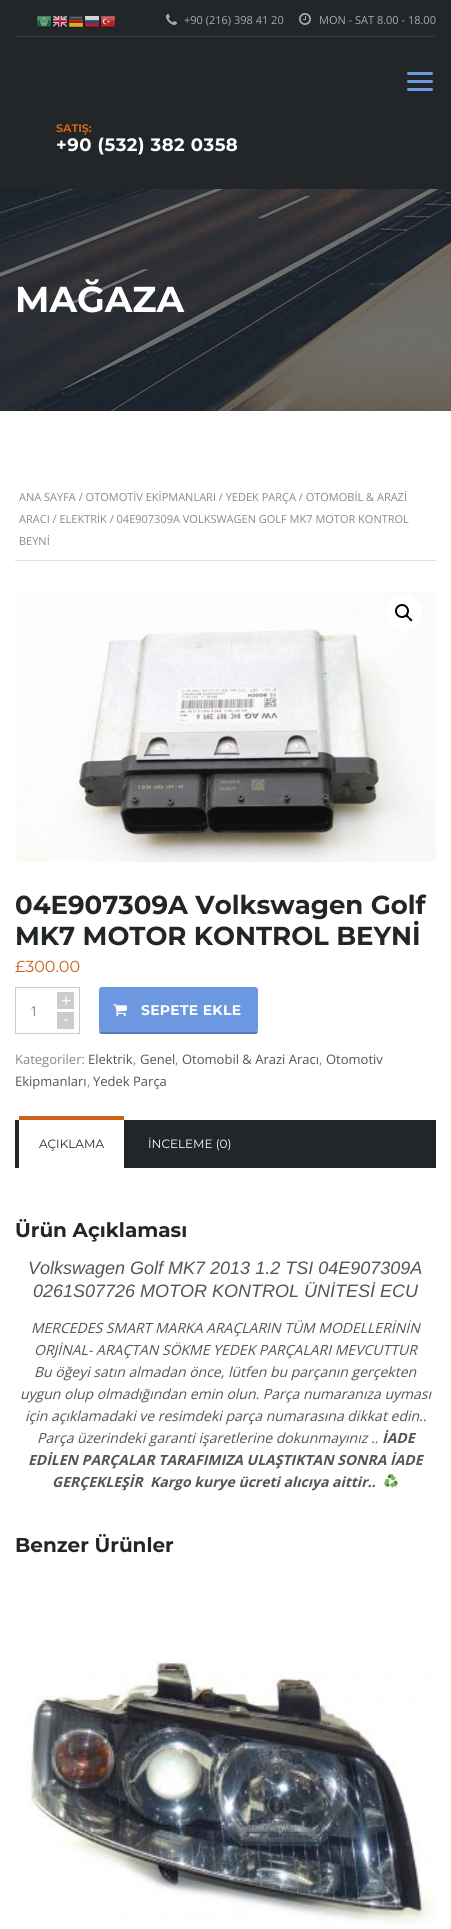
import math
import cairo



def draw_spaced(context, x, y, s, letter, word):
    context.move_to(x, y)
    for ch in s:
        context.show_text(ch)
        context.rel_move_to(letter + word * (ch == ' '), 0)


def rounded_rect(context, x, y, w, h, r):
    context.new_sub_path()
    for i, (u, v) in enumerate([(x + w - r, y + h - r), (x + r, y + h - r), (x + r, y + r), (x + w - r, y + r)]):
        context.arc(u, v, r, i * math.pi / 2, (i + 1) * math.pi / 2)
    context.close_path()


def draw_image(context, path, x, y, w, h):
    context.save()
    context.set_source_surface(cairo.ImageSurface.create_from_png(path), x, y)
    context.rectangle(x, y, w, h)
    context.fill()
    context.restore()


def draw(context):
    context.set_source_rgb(1, 1, 1)
    context.paint()
    context.set_source_rgb(35 / 255, 38 / 255, 40 / 255)
    context.rectangle(0, 0, 451, 189)
    context.fill()
    context.set_source_rgb(57 / 255, 60 / 255, 62 / 255)
    context.rectangle(15, 36, 421, 1)
    context.fill()
    draw_image(context, "images/1.png", 166, 14, 11, 11)
    draw_image(context, "images/2.png", 299, 13, 12, 12)
    context.set_source_rgb(108 / 255, 152 / 255, 225 / 255)
    rounded_rect(context, 407, 72, 26, 3, 1.5)
    context.fill()
    rounded_rect(context, 407, 80, 26, 3, 1.5)
    context.fill()
    rounded_rect(context, 407, 88, 26, 3, 1.5)
    context.fill()
    draw_image(context, "images/3.png", 0, 189, 451, 222)
    context.set_source_rgb(221 / 255, 221 / 255, 221 / 255)
    context.rectangle(15, 560, 421, 1)
    context.fill()
    draw_image(context, "images/4.png", 15, 591, 421, 271)
    context.set_source_rgb(1, 1, 1)
    context.arc(404, 613, 18, 0, 2 * math.pi)
    context.fill()
    context.arc(402, 611, 6, 0, 2 * math.pi)
    context.set_source_rgb(0, 0, 0)
    context.stroke()
    context.new_path()
    context.move_to(406, 615)
    context.curve_to(407.5, 614, 409, 616.5, 409.5, 617.5)
    context.curve_to(410.5, 618, 413, 619.5, 412, 621)
    context.curve_to(410.5, 622, 409, 619.5, 408.5, 618.5)
    context.curve_to(407.5, 618, 405, 616.5, 406, 615)
    context.close_path()
    context.fill()
    context.rectangle(15.5, 987.5, 64, 46)
    context.set_source_rgb(204 / 255, 204 / 255, 204 / 255)
    context.set_line_width(1)
    context.stroke()
    context.rectangle(57, 992, 17, 17)
    context.fill()
    context.rectangle(57, 1012, 17, 17)
    context.fill()
    context.set_source_rgb(86 / 255, 122 / 255, 180 / 255)
    context.new_path()
    context.move_to(99, 1029)
    context.line_to(99, 1031)
    context.curve_to(99, 1033, 100, 1034, 102, 1034)
    context.line_to(255, 1034)
    context.curve_to(257, 1034, 258, 1033, 258, 1031)
    context.line_to(258, 1029)
    context.curve_to(258, 1031, 257, 1032, 255, 1032)
    context.line_to(102, 1032)
    context.curve_to(100, 1032, 99, 1031, 99, 1029)
    context.close_path()
    context.fill()
    context.set_source_rgb(108 / 255, 152 / 255, 225 / 255)
    rounded_rect(context, 99, 987, 159, 45, 3)
    context.fill()
    draw_image(context, "images/5.png", 113, 1004, 14, 12)
    context.set_source_rgb(35 / 255, 38 / 255, 40 / 255)
    context.rectangle(15, 1120, 421, 48)
    context.fill()
    context.set_source_rgb(1, 1, 1)
    context.rectangle(19, 1120, 105, 48)
    context.fill()
    context.set_source_rgb(204 / 255, 97 / 255, 25 / 255)
    context.rectangle(19, 1116, 105, 4)
    context.fill()
    draw_image(context, "images/6.png", 384, 1474, 14, 14)
    draw_image(context, "images/7.png", 27, 1660, 409, 265)
    draw_image(context, "images/8.png", 36, 16, 16, 12)
    draw_image(context, "images/9.png", 52, 16, 16, 12)
    draw_image(context, "images/10.png", 68, 16, 16, 12)
    draw_image(context, "images/11.png", 84, 16, 16, 12)
    draw_image(context, "images/12.png", 100, 16, 16, 12)
    context.select_font_face("Open Sans")
    context.set_font_size(11)
    context.set_source_rgb(170 / 255, 170 / 255, 170 / 255)
    context.move_to(184, 24)
    context.show_text("+90 (216) 398 41 20")
    context.move_to(319, 24)
    context.show_text("MON - SAT 8.00 - 18.00")
    context.select_font_face("Montserrat", cairo.FontSlant.NORMAL, cairo.FontWeight.BOLD)
    context.set_source_rgb(204 / 255, 97 / 255, 25 / 255)
    context.move_to(56, 132)
    context.show_text("SATIŞ:")
    context.set_font_size(18)
    context.set_source_rgb(1, 1, 1)
    draw_spaced(context, 56, 151, "+90 (532) 382 0358", 0.5, 0)
    context.set_font_size(36)
    context.move_to(15, 312)
    context.show_text("MAĞAZA")
    context.select_font_face("Open Sans")
    context.set_font_size(11)
    context.set_source_rgb(136 / 255, 136 / 255, 136 / 255)
    context.move_to(19, 501)
    context.show_text("ANA SAYFA / OTOMOTİV EKİPMANLARI / YEDEK PARÇA / OTOMOBİL & ARAZİ")
    context.move_to(19, 523)
    context.show_text("ARACI / ELEKTRİK / 04E907309A VOLKSWAGEN GOLF MK7 MOTOR KONTROL")
    context.move_to(19, 545)
    context.show_text("BEYNİ")
    context.select_font_face("Montserrat", cairo.FontSlant.NORMAL, cairo.FontWeight.BOLD)
    context.set_font_size(26)
    context.set_source_rgb(35 / 255, 38 / 255, 40 / 255)
    context.move_to(15, 914)
    context.show_text("04E907309A Volkswagen Golf")
    context.move_to(15, 945)
    context.show_text("MK7 MOTOR KONTROL BEYNİ")
    context.select_font_face("Montserrat")
    context.set_font_size(16)
    context.set_source_rgb(204 / 255, 97 / 255, 25 / 255)
    context.move_to(15, 972)
    context.show_text("£300.00")
    context.select_font_face("Open Sans")
    context.set_font_size(14)
    context.set_source_rgb(136 / 255, 136 / 255, 136 / 255)
    context.move_to(30, 1016)
    context.show_text("1")
    context.set_font_size(18)
    context.set_source_rgb(1, 1, 1)
    context.move_to(61, 1007)
    context.show_text("+")
    context.move_to(63, 1025)
    context.show_text("-")
    context.select_font_face("Montserrat", cairo.FontSlant.NORMAL, cairo.FontWeight.BOLD)
    context.set_font_size(14)
    draw_spaced(context, 141, 1015, "SEPETE EKLE", 0.25, 0)
    context.select_font_face("Open Sans")
    context.set_font_size(13)
    context.set_source_rgb(136 / 255, 136 / 255, 136 / 255)
    context.move_to(15, 1064)
    context.show_text("Kategoriler:")
    context.set_source_rgb(85 / 255, 85 / 255, 85 / 255)
    context.move_to(88, 1064)
    context.show_text("Elektrik")
    context.set_source_rgb(136 / 255, 136 / 255, 136 / 255)
    context.move_to(133, 1064)
    context.show_text(",")
    context.set_source_rgb(85 / 255, 85 / 255, 85 / 255)
    context.move_to(140, 1064)
    context.show_text("Genel")
    context.set_source_rgb(136 / 255, 136 / 255, 136 / 255)
    context.move_to(175, 1064)
    context.show_text(",")
    context.set_source_rgb(85 / 255, 85 / 255, 85 / 255)
    context.move_to(182, 1064)
    context.show_text("Otomobil & Arazi Aracı")
    context.set_source_rgb(136 / 255, 136 / 255, 136 / 255)
    context.move_to(319, 1064)
    context.show_text(",")
    context.set_source_rgb(85 / 255, 85 / 255, 85 / 255)
    context.move_to(326, 1064)
    context.show_text("Otomotiv")
    context.move_to(15, 1086)
    context.show_text("Ekipmanları")
    context.set_source_rgb(136 / 255, 136 / 255, 136 / 255)
    context.move_to(87, 1086)
    context.show_text(",")
    context.set_source_rgb(85 / 255, 85 / 255, 85 / 255)
    context.move_to(93, 1086)
    context.show_text("Yedek Parça")
    context.select_font_face("Montserrat")
    context.set_font_size(12)
    context.set_source_rgb(35 / 255, 38 / 255, 40 / 255)
    context.move_to(39, 1148)
    context.show_text("AÇIKLAMA")
    context.set_source_rgb(1, 1, 1)
    context.move_to(148, 1148)
    context.show_text("İNCELEME (0)")
    context.select_font_face("Montserrat", cairo.FontSlant.NORMAL, cairo.FontWeight.BOLD)
    context.set_font_size(20)
    context.set_source_rgb(35 / 255, 38 / 255, 40 / 255)
    context.move_to(15, 1237)
    context.show_text("Ürün Açıklaması")
    context.select_font_face("Liberation Sans", cairo.FontSlant.ITALIC)
    context.set_font_size(18)
    context.set_source_rgb(85 / 255, 85 / 255, 85 / 255)
    context.move_to(28, 1274)
    context.show_text("Volkswagen Golf MK7 2013 1.2 TSI 04E907309A")
    context.move_to(33, 1297)
    context.show_text("0261S07726 MOTOR KONTROL ÜNİTESİ ECU")
    context.select_font_face("Open Sans", cairo.FontSlant.ITALIC)
    context.set_font_size(14)
    context.move_to(31, 1333)
    context.show_text("MERCEDES SMART MARKA ARAÇLARIN TÜM MODELLERİNİN")
    context.move_to(34, 1355)
    context.show_text("ORJİNAL- ARAÇTAN SÖKME YEDEK PARÇALARI MEVCUTTUR")
    context.move_to(34, 1377)
    context.show_text("Bu öğeyi satın almadan önce, lütfen bu parçanın gerçekten")
    context.move_to(20, 1399)
    context.show_text("uygun olup olmadığından emin olun. Parça numaranıza uyması")
    context.move_to(25, 1421)
    context.show_text("için açıklamadaki ve resimdeki parça numarasına dikkat edin..")
    context.move_to(37, 1443)
    context.show_text("Parça üzerindeki garanti işaretlerine dokunmayınız ..")
    context.select_font_face("Open Sans", cairo.FontSlant.ITALIC, cairo.FontWeight.BOLD)
    context.move_to(382, 1443)
    context.show_text("İADE")
    context.move_to(28, 1465)
    context.show_text("EDİLEN PARÇALAR TARAFIMIZA ULAŞTIKTAN SONRA İADE")
    context.move_to(52, 1487)
    context.show_text("GERÇEKLEŞİR")
    context.move_to(150, 1487)
    context.show_text("Kargo kurye ücreti alıcıya aittir..")
    context.select_font_face("Montserrat", cairo.FontSlant.NORMAL, cairo.FontWeight.BOLD)
    context.set_font_size(20)
    context.set_source_rgb(35 / 255, 38 / 255, 40 / 255)
    context.move_to(15, 1552)
    context.show_text("Benzer Ürünler")


surface = cairo.ImageSurface(cairo.Format.RGB24, 451, 1929)
context = cairo.Context(surface)
options = cairo.FontOptions()
options.set_hint_metrics(cairo.HintMetrics.OFF)
options.set_hint_style(cairo.HintStyle.NONE)
context.set_font_options(options)
context.set_miter_limit(4)
draw(context)
surface.write_to_png("out.png")
